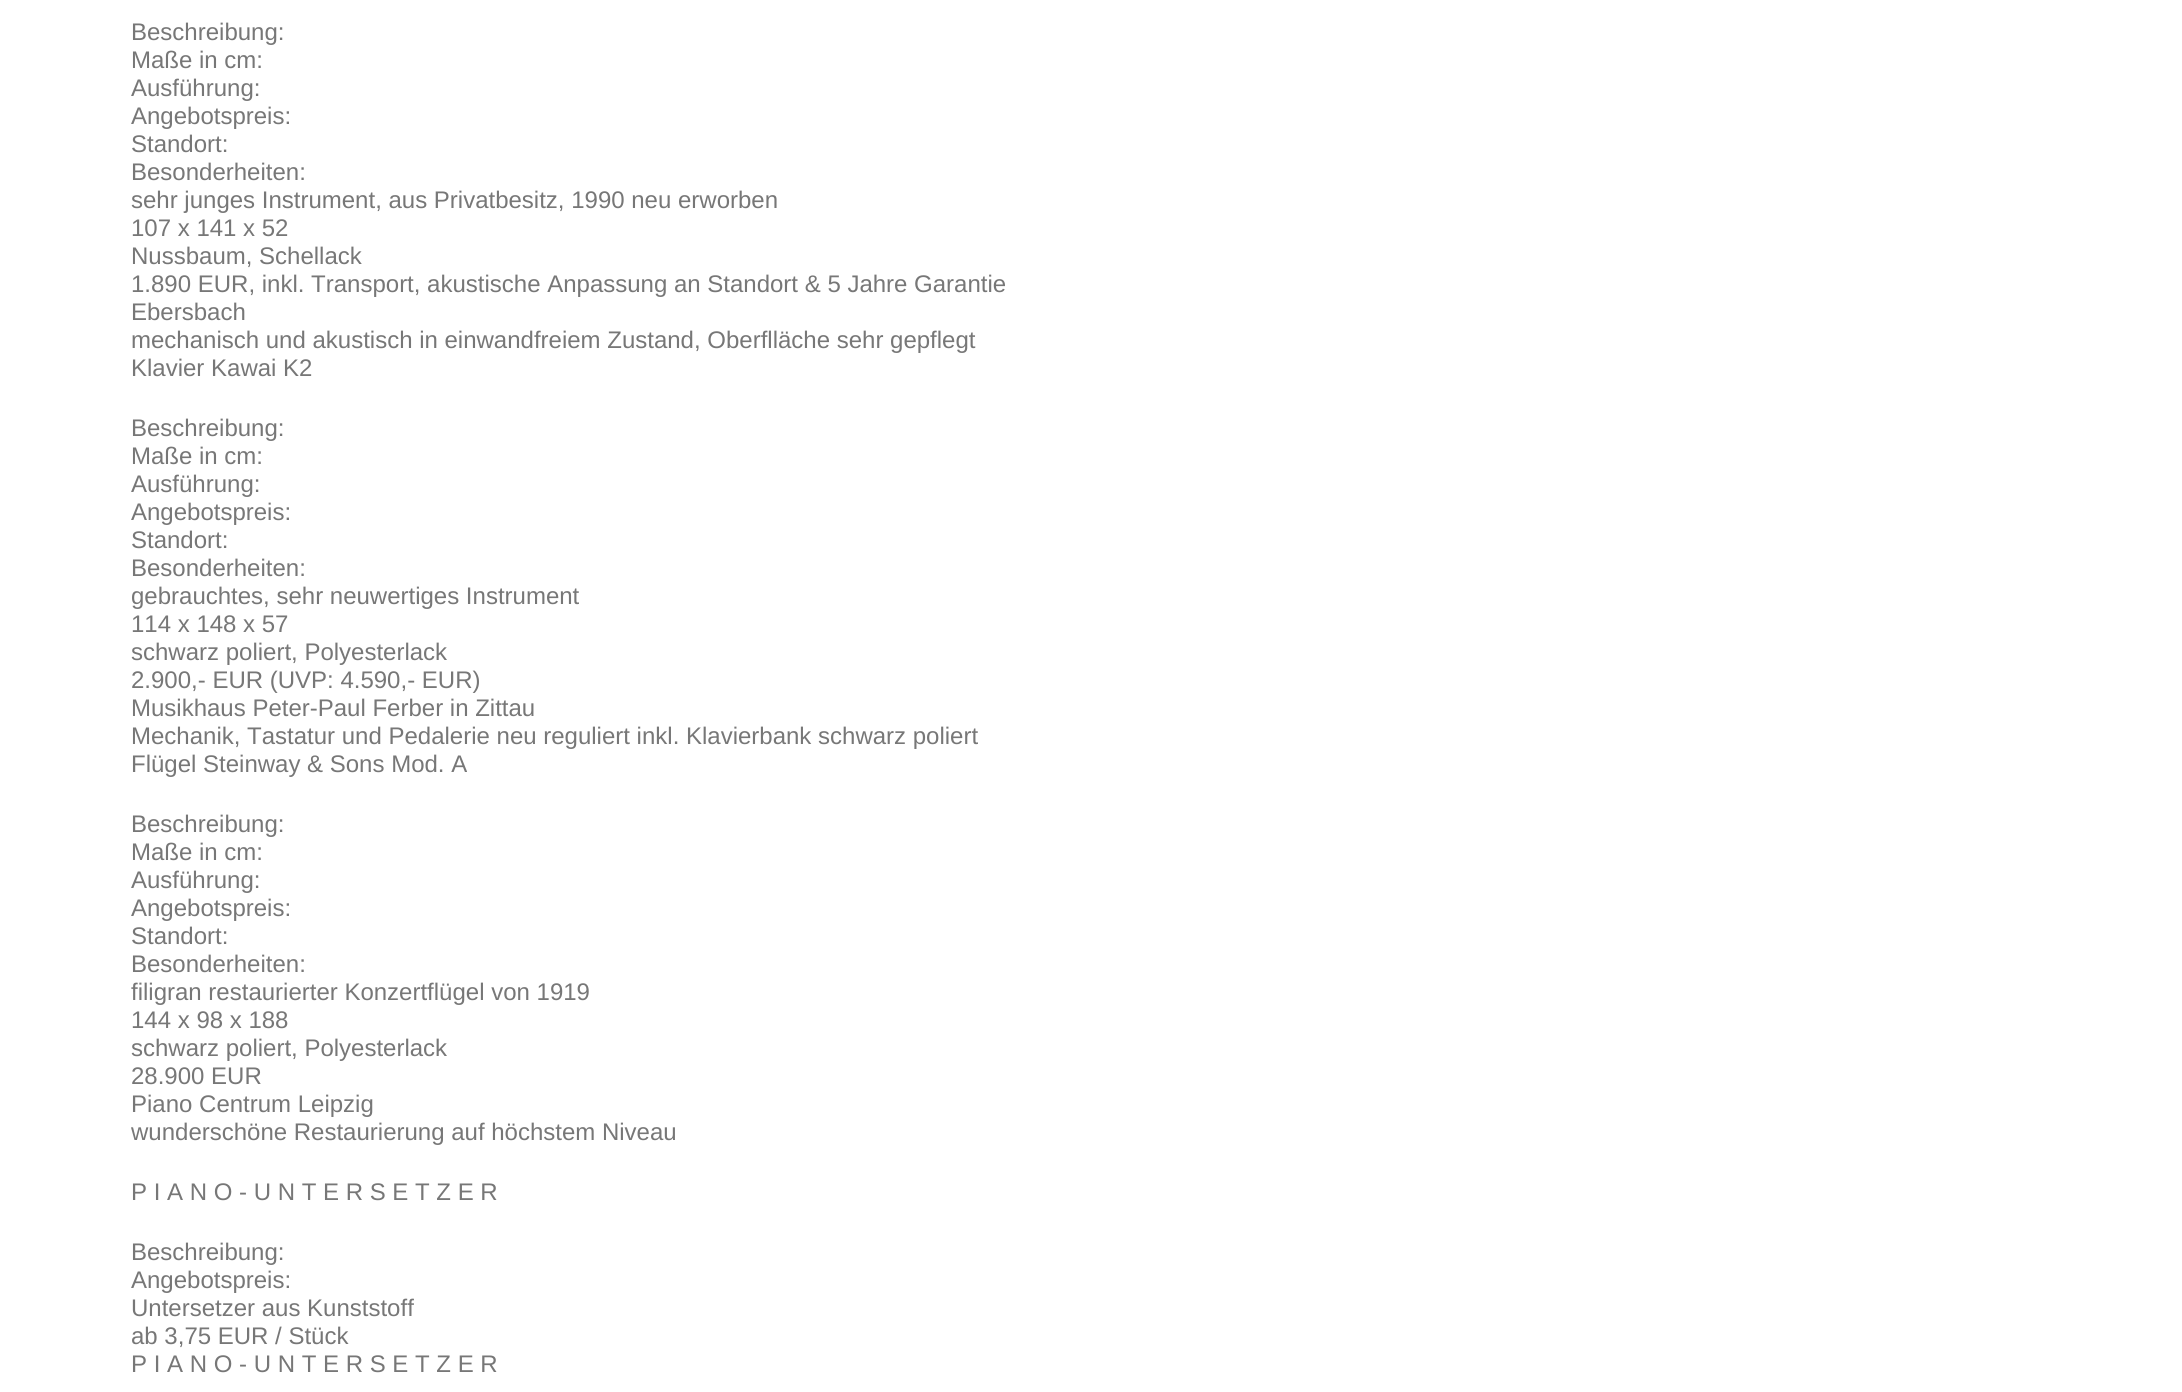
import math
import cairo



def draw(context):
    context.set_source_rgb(1, 1, 1)
    context.paint()
    context.select_font_face("Liberation Sans")
    context.set_font_size(24)
    context.set_source_rgb(119 / 255, 119 / 255, 119 / 255)
    context.move_to(131, 40)
    context.show_text("Beschreibung:")
    context.move_to(131, 68)
    context.show_text("Maße in cm:")
    context.move_to(131, 96)
    context.show_text("Ausführung:")
    context.move_to(131, 124)
    context.show_text("Angebotspreis:")
    context.move_to(131, 152)
    context.show_text("Standort:")
    context.move_to(131, 180)
    context.show_text("Besonderheiten:")
    context.move_to(131, 208)
    context.show_text("sehr junges Instrument, aus Privatbesitz, 1990 neu erworben")
    context.move_to(131, 236)
    context.show_text("107 x 141 x 52")
    context.move_to(131, 264)
    context.show_text("Nussbaum, Schellack")
    context.move_to(131, 292)
    context.show_text("1.890 EUR, inkl. Transport, akustische Anpassung an Standort & 5 Jahre Garantie")
    context.move_to(131, 320)
    context.show_text("Ebersbach")
    context.move_to(131, 348)
    context.show_text("mechanisch und akustisch in einwandfreiem Zustand, Oberflläche sehr gepflegt")
    context.move_to(131, 376)
    context.show_text("Klavier Kawai K2")
    context.move_to(131, 436)
    context.show_text("Beschreibung:")
    context.move_to(131, 464)
    context.show_text("Maße in cm:")
    context.move_to(131, 492)
    context.show_text("Ausführung:")
    context.move_to(131, 520)
    context.show_text("Angebotspreis:")
    context.move_to(131, 548)
    context.show_text("Standort:")
    context.move_to(131, 576)
    context.show_text("Besonderheiten:")
    context.move_to(131, 604)
    context.show_text("gebrauchtes, sehr neuwertiges Instrument")
    context.move_to(131, 632)
    context.show_text("114 x 148 x 57")
    context.move_to(131, 660)
    context.show_text("schwarz poliert, Polyesterlack")
    context.move_to(131, 688)
    context.show_text("2.900,- EUR (UVP: 4.590,- EUR)")
    context.move_to(131, 716)
    context.show_text("Musikhaus Peter-Paul Ferber in Zittau")
    context.move_to(131, 744)
    context.show_text("Mechanik, Tastatur und Pedalerie neu reguliert inkl. Klavierbank schwarz poliert")
    context.move_to(131, 772)
    context.show_text("Flügel Steinway & Sons Mod. A")
    context.move_to(131, 832)
    context.show_text("Beschreibung:")
    context.move_to(131, 860)
    context.show_text("Maße in cm:")
    context.move_to(131, 888)
    context.show_text("Ausführung:")
    context.move_to(131, 916)
    context.show_text("Angebotspreis:")
    context.move_to(131, 944)
    context.show_text("Standort:")
    context.move_to(131, 972)
    context.show_text("Besonderheiten:")
    context.move_to(131, 1000)
    context.show_text("filigran restaurierter Konzertflügel von 1919")
    context.move_to(131, 1028)
    context.show_text("144 x 98 x 188")
    context.move_to(131, 1056)
    context.show_text("schwarz poliert, Polyesterlack")
    context.move_to(131, 1084)
    context.show_text("28.900 EUR")
    context.move_to(131, 1112)
    context.show_text("Piano Centrum Leipzig")
    context.move_to(131, 1140)
    context.show_text("wunderschöne Restaurierung auf höchstem Niveau")
    context.move_to(131, 1200)
    context.show_text("P I A N O - U N T E R S E T Z E R")
    context.move_to(131, 1260)
    context.show_text("Beschreibung:")
    context.move_to(131, 1288)
    context.show_text("Angebotspreis:")
    context.move_to(131, 1316)
    context.show_text("Untersetzer aus Kunststoff")
    context.move_to(131, 1344)
    context.show_text("ab 3,75 EUR / Stück")
    context.move_to(131, 1372)
    context.show_text("P I A N O - U N T E R S E T Z E R")


surface = cairo.ImageSurface(cairo.Format.RGB24, 2182, 1392)
context = cairo.Context(surface)
options = cairo.FontOptions()
options.set_hint_metrics(cairo.HintMetrics.OFF)
options.set_hint_style(cairo.HintStyle.NONE)
context.set_font_options(options)
context.set_miter_limit(4)
draw(context)
surface.write_to_png("out.png")
